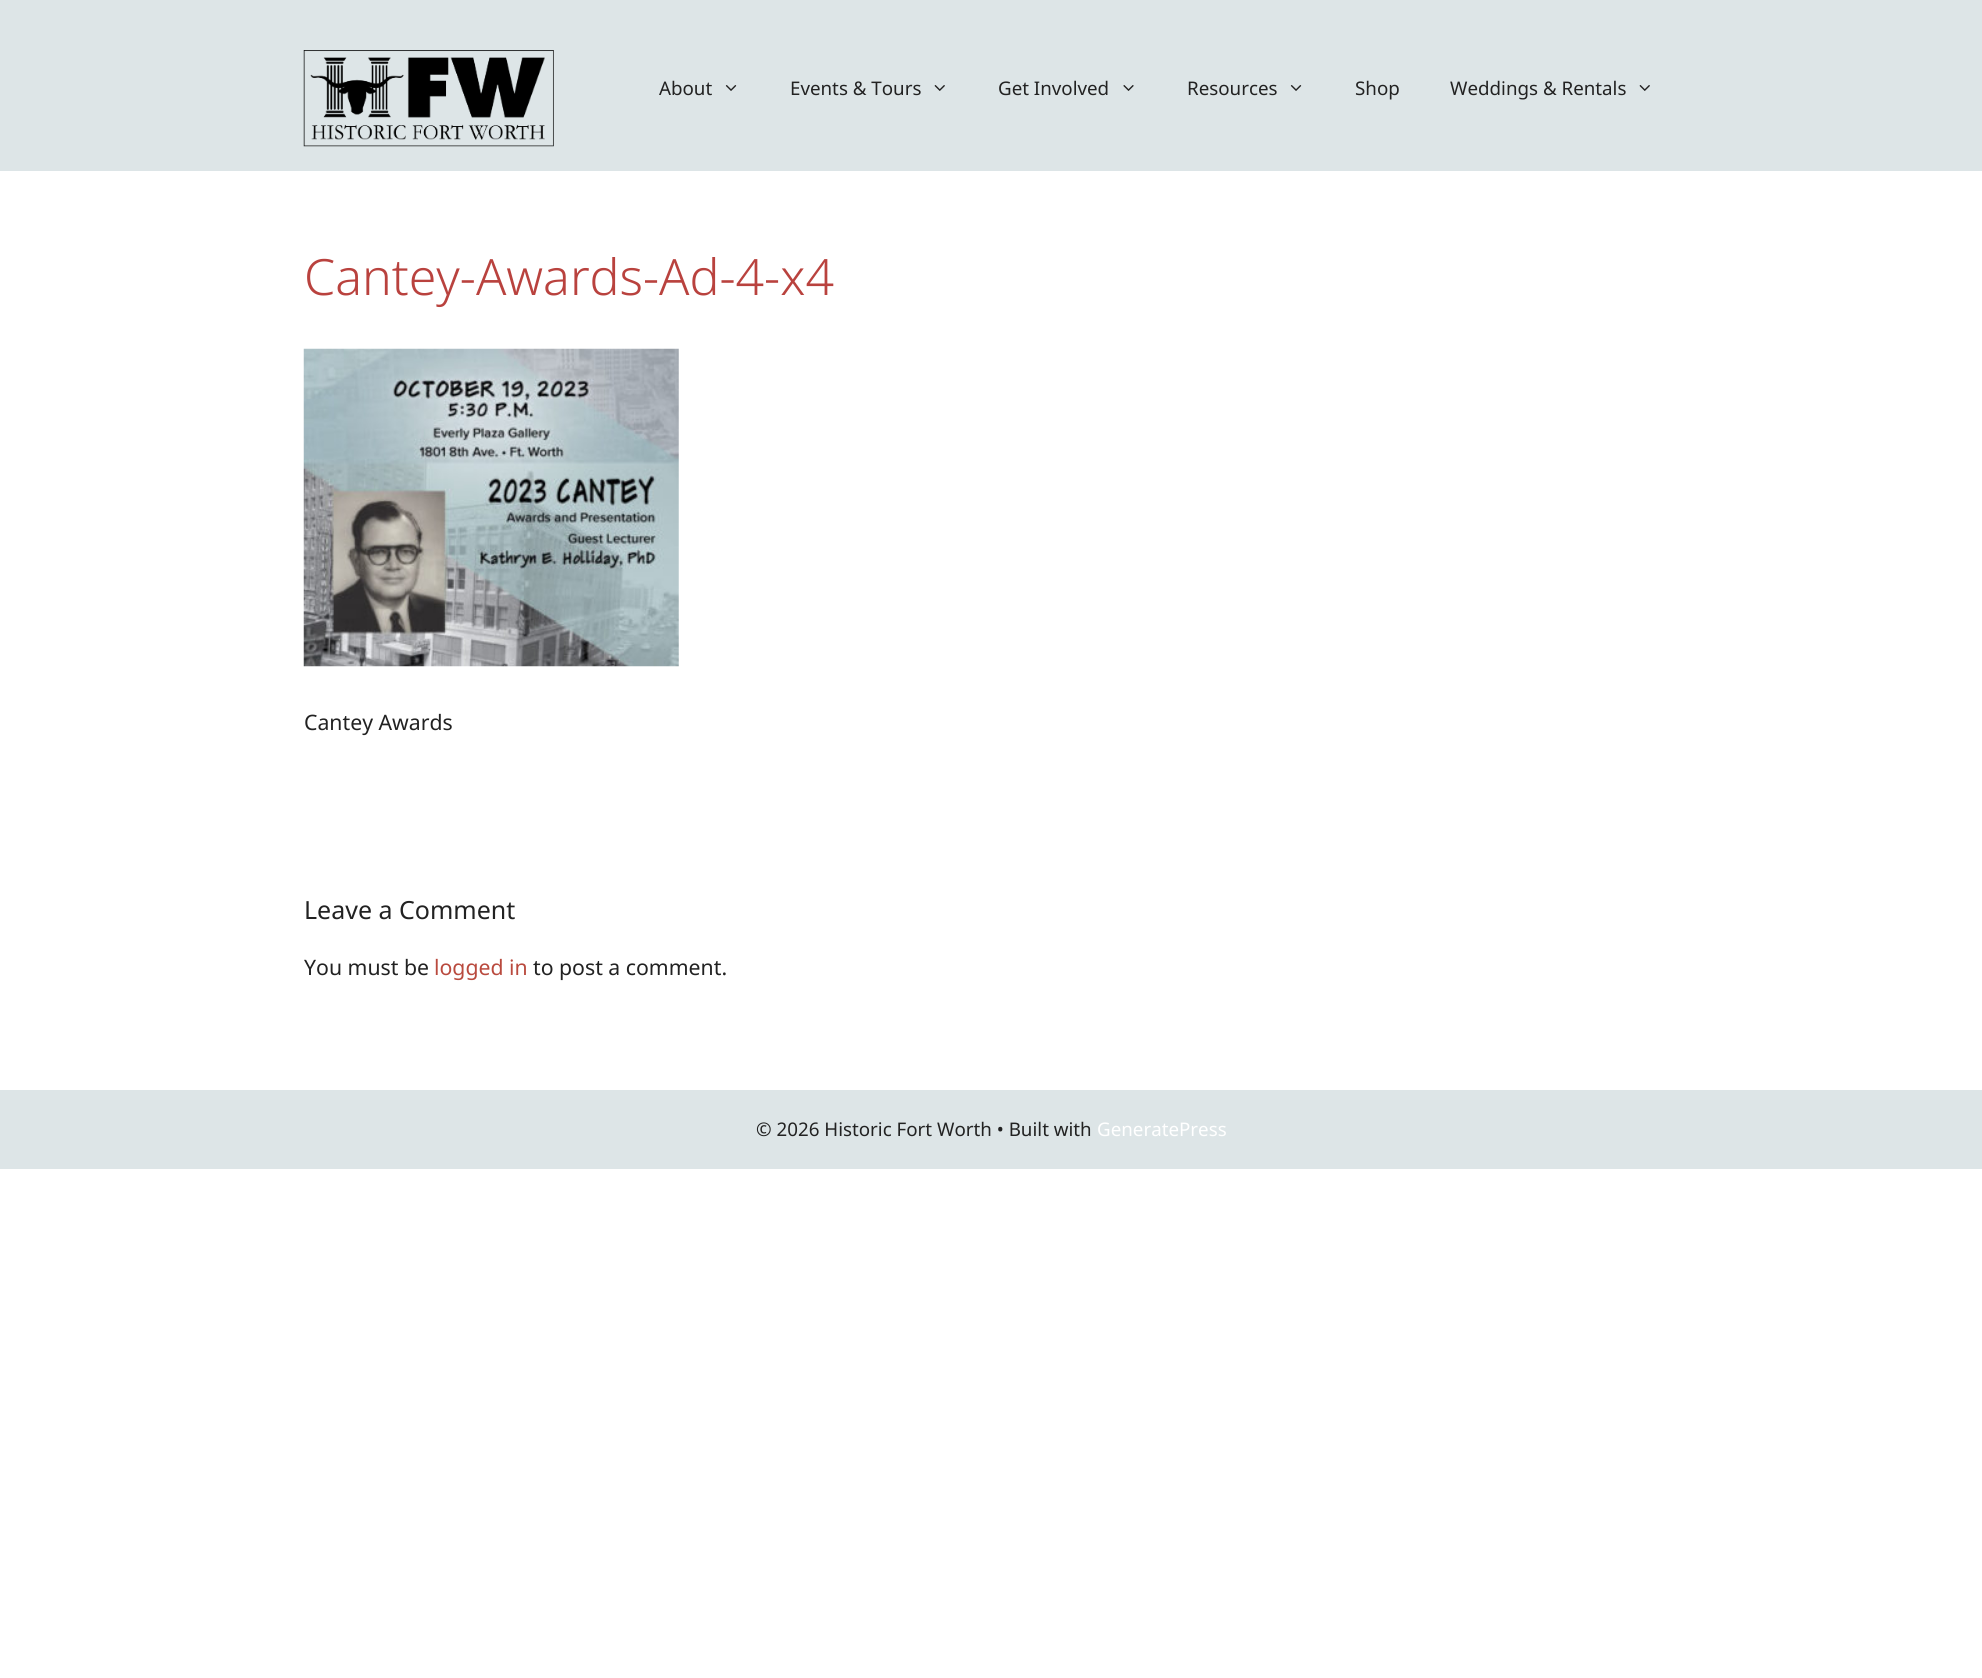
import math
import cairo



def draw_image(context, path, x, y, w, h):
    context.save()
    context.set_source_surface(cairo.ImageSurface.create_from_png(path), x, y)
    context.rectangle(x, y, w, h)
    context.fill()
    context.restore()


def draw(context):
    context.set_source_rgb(1, 1, 1)
    context.paint()
    context.set_source_rgb(221 / 255, 229 / 255, 231 / 255)
    context.rectangle(0, 0, 1982, 171)
    context.fill()
    draw_image(context, "images/1.png", 303, 50, 251, 97)
    draw_image(context, "images/2.png", 725, 85, 12, 6)
    draw_image(context, "images/3.png", 934, 85, 11, 6)
    draw_image(context, "images/4.png", 1123, 85, 11, 6)
    draw_image(context, "images/2.png", 1290, 85, 12, 6)
    draw_image(context, "images/3.png", 1639, 85, 11, 6)
    draw_image(context, "images/5.png", 303, 348, 376, 319)
    context.rectangle(0, 1090, 1982, 79)
    context.fill()
    context.select_font_face("Noto Sans")
    context.set_font_size(18.75)
    context.set_source_rgb(34 / 255, 34 / 255, 34 / 255)
    context.move_to(659, 95)
    context.show_text("About")
    context.move_to(790, 95)
    context.show_text("Events & Tours")
    context.move_to(998, 95)
    context.show_text("Get Involved")
    context.move_to(1187, 95)
    context.show_text("Resources")
    context.move_to(1355, 95)
    context.show_text("Shop")
    context.move_to(1450, 95)
    context.show_text("Weddings & Rentals")
    context.select_font_face("Noto Sans Light")
    context.set_font_size(50)
    context.set_source_rgb(185 / 255, 66 / 255, 62 / 255)
    context.move_to(304, 295)
    context.show_text("Cantey-Awards-Ad-4-x4")
    context.select_font_face("Noto Sans")
    context.set_font_size(21.25)
    context.set_source_rgb(34 / 255, 34 / 255, 34 / 255)
    context.move_to(304, 730)
    context.show_text("Cantey Awards")
    context.set_font_size(25)
    context.move_to(304, 919)
    context.show_text("Leave a Comment")
    context.set_font_size(21.25)
    context.move_to(304, 975)
    context.show_text("You must be")
    context.set_source_rgb(185 / 255, 74 / 255, 62 / 255)
    context.move_to(434, 975)
    context.show_text("logged in")
    context.set_source_rgb(34 / 255, 34 / 255, 34 / 255)
    context.move_to(533, 975)
    context.show_text("to post a comment.")
    context.set_font_size(18.75)
    context.move_to(756, 1136)
    context.show_text("© 2026 Historic Fort Worth • Built with")
    context.set_source_rgb(1, 1, 1)
    context.move_to(1097, 1136)
    context.show_text("GeneratePress")


surface = cairo.ImageSurface(cairo.Format.RGB24, 1982, 1678)
context = cairo.Context(surface)
options = cairo.FontOptions()
options.set_hint_metrics(cairo.HintMetrics.OFF)
options.set_hint_style(cairo.HintStyle.NONE)
context.set_font_options(options)
context.set_miter_limit(4)
draw(context)
surface.write_to_png("out.png")
